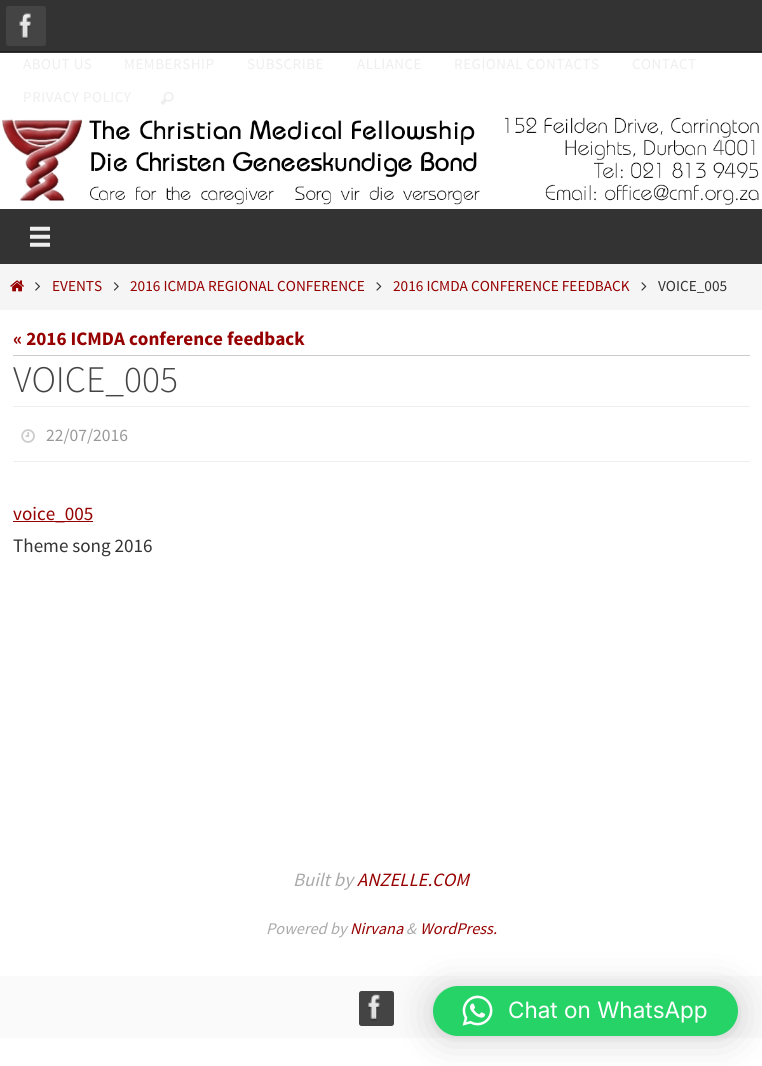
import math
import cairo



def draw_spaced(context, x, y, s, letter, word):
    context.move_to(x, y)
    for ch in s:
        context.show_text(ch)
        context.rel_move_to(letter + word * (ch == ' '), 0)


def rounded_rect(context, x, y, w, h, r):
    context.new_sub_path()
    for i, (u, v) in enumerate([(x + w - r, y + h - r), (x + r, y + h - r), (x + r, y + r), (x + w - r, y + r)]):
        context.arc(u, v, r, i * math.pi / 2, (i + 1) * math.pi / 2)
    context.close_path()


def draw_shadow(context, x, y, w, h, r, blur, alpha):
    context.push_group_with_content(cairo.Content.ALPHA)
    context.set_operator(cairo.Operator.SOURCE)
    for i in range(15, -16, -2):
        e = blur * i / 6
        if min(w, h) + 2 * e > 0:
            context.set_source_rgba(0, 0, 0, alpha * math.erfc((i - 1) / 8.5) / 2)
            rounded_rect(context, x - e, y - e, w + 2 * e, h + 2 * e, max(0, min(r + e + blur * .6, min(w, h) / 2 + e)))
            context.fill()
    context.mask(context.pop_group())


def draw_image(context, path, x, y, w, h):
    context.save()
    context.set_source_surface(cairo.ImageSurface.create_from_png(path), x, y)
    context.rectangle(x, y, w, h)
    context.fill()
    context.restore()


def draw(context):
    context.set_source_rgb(1, 1, 1)
    context.paint()
    context.set_source_rgb(51 / 255, 51 / 255, 51 / 255)
    context.rectangle(0, 0, 762, 53)
    context.fill()
    context.set_source_rgb(31 / 255, 31 / 255, 31 / 255)
    context.rectangle(0, 51, 762, 1)
    context.fill()
    context.set_source_rgb(68 / 255, 68 / 255, 68 / 255)
    rounded_rect(context, 6, 6, 40, 40, 2.5)
    context.fill()
    draw_image(context, "images/1.png", 19, 13, 12, 27)
    draw_image(context, "images/2.png", 160, 92, 14, 13)
    draw_image(context, "images/3.png", 2, 117, 757, 88)
    context.set_source_rgb(51 / 255, 51 / 255, 51 / 255)
    context.rectangle(0, 209, 762, 55)
    context.fill()
    draw_image(context, "images/4.png", 30, 226, 20, 21)
    context.set_source_rgb(245 / 255, 245 / 255, 245 / 255)
    context.rectangle(0, 264, 762, 46)
    context.fill()
    draw_image(context, "images/5.png", 10, 280, 14, 12)
    draw_image(context, "images/6.png", 35, 282, 5, 9)
    draw_image(context, "images/7.png", 113, 282, 6, 9)
    draw_image(context, "images/8.png", 376, 282, 6, 9)
    draw_image(context, "images/8.png", 641, 282, 6, 9)
    context.set_source_rgb(204 / 255, 204 / 255, 204 / 255)
    context.rectangle(13, 355, 737, 1)
    context.fill()
    context.set_source_rgb(238 / 255, 238 / 255, 238 / 255)
    context.rectangle(13, 406, 737, 1)
    context.fill()
    context.rectangle(13, 461, 737, 1)
    context.fill()
    draw_image(context, "images/9.png", 21, 429, 14, 14)
    context.set_source_rgb(150 / 255, 0, 0)
    context.rectangle(13, 521, 80, 1)
    context.fill()
    context.set_source_rgb(250 / 255, 250 / 255, 250 / 255)
    context.rectangle(0, 976, 762, 62)
    context.fill()
    context.set_source_rgb(68 / 255, 68 / 255, 68 / 255)
    rounded_rect(context, 359, 991, 35, 35, 2.5)
    context.fill()
    draw_image(context, "images/10.png", 368, 994, 12, 27)
    context.set_source_rgb(0, 0, 0)
    draw_shadow(context, 433, 989, 305, 50, 25, 20, 0.16)
    draw_shadow(context, 433, 988, 305, 50, 25, 4, 0.06)
    context.set_source_rgb(37 / 255, 211 / 255, 102 / 255)
    rounded_rect(context, 433, 986, 305, 50, 25)
    context.fill()
    draw_image(context, "images/11.png", 462, 995, 31, 31)
    context.select_font_face("Source Sans Pro")
    context.set_font_size(15)
    context.set_source_rgb(238 / 255, 238 / 255, 238 / 255)
    draw_spaced(context, 23, 69, "ABOUT US", 0.5, 0)
    draw_spaced(context, 124, 69, "MEMBERSHIP", 0.5, 0)
    draw_spaced(context, 247, 69, "SUBSCRIBE", 0.5, 0)
    draw_spaced(context, 357, 69, "ALLIANCE", 0.5, 0)
    draw_spaced(context, 454, 69, "REGIONAL CONTACTS", 0.5, 0)
    draw_spaced(context, 632, 69, "CONTACT", 0.5, 0)
    draw_spaced(context, 23, 102, "PRIVACY POLICY", 0.5, 0)
    context.set_font_size(15.25)
    context.set_source_rgb(150 / 255, 0, 0)
    context.move_to(52, 291)
    context.show_text("EVENTS")
    context.move_to(130, 291)
    context.show_text("2016 ICMDA REGIONAL CONFERENCE")
    context.move_to(393, 291)
    context.show_text("2016 ICMDA CONFERENCE FEEDBACK")
    context.set_source_rgb(51 / 255, 51 / 255, 51 / 255)
    context.move_to(658, 291)
    context.show_text("VOICE_005")
    context.select_font_face("Source Sans Pro", cairo.FontSlant.NORMAL, cairo.FontWeight.BOLD)
    context.set_font_size(19.1)
    context.set_source_rgb(150 / 255, 0, 0)
    context.move_to(13, 345)
    context.show_text("« 2016 ICMDA conference feedback")
    context.select_font_face("Source Sans Pro Light")
    context.set_font_size(37.5)
    context.set_source_rgb(68 / 255, 68 / 255, 68 / 255)
    context.move_to(13, 392)
    context.show_text("VOICE_005")
    context.select_font_face("Source Sans Pro")
    context.set_font_size(17.5)
    context.set_source_rgb(153 / 255, 153 / 255, 153 / 255)
    context.move_to(46, 441)
    context.show_text("22/07/2016")
    context.set_font_size(19.1)
    context.set_source_rgb(150 / 255, 0, 0)
    context.move_to(13, 520)
    context.show_text("voice_005")
    context.set_source_rgb(51 / 255, 51 / 255, 51 / 255)
    context.move_to(13, 552)
    context.show_text("Theme song 2016")
    context.select_font_face("Source Sans Pro", cairo.FontSlant.ITALIC)
    context.set_font_size(18.75)
    context.set_source_rgb(170 / 255, 170 / 255, 170 / 255)
    context.move_to(293, 886)
    context.show_text("Built by")
    context.set_source_rgb(150 / 255, 0, 0)
    context.move_to(357, 886)
    context.show_text("ANZELLE.COM")
    context.set_font_size(16.25)
    context.set_source_rgb(170 / 255, 170 / 255, 170 / 255)
    context.move_to(266, 934)
    context.show_text("Powered by")
    context.set_source_rgb(150 / 255, 0, 0)
    context.move_to(350, 934)
    context.show_text("Nirvana")
    context.set_source_rgb(170 / 255, 170 / 255, 170 / 255)
    context.move_to(406, 934)
    context.show_text("&")
    context.set_source_rgb(150 / 255, 0, 0)
    context.move_to(420, 934)
    context.show_text("WordPress.")
    context.select_font_face("Inter")
    context.set_font_size(22.5)
    context.set_source_rgb(1, 1, 1)
    context.move_to(508, 1018)
    context.show_text("Chat on WhatsApp")


surface = cairo.ImageSurface(cairo.Format.RGB24, 762, 1066)
context = cairo.Context(surface)
options = cairo.FontOptions()
options.set_hint_metrics(cairo.HintMetrics.OFF)
options.set_hint_style(cairo.HintStyle.NONE)
context.set_font_options(options)
context.set_miter_limit(4)
draw(context)
surface.write_to_png("out.png")
